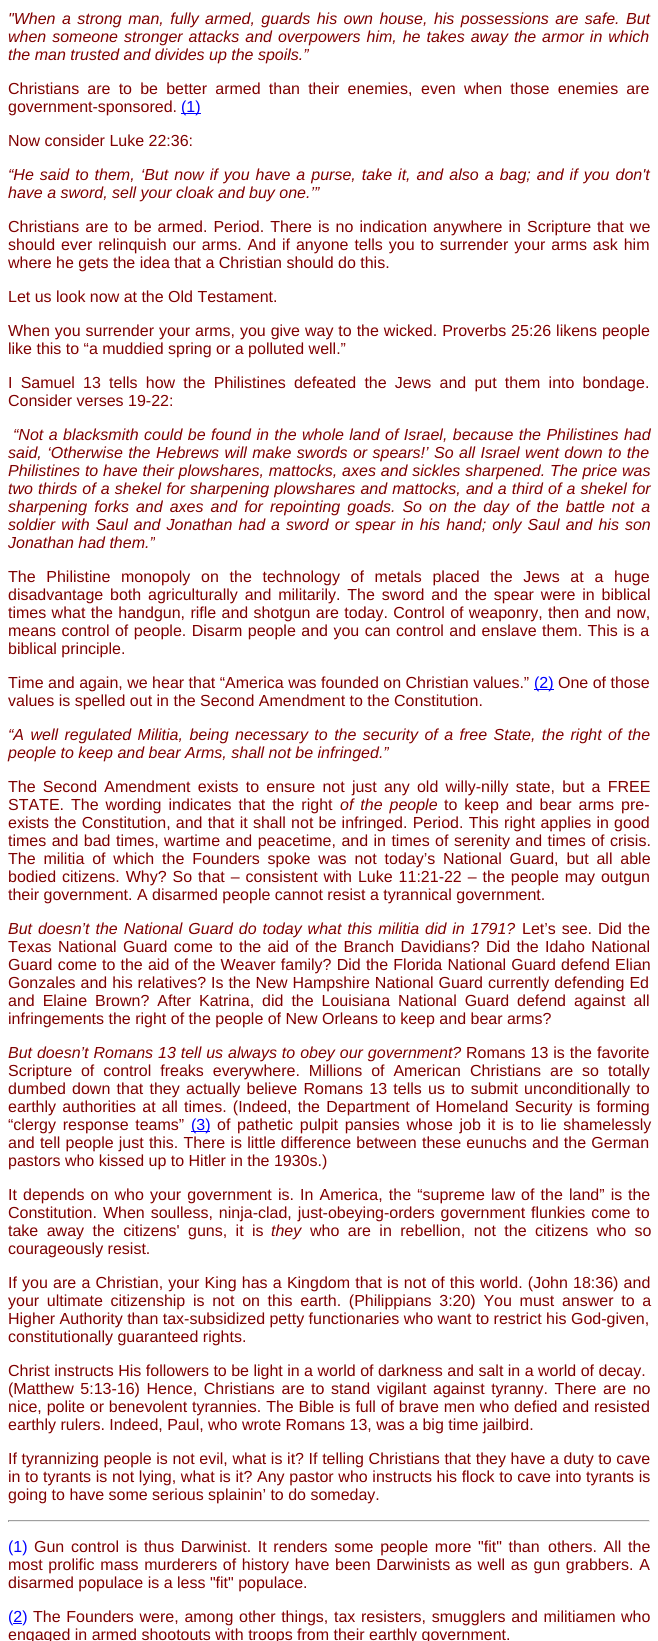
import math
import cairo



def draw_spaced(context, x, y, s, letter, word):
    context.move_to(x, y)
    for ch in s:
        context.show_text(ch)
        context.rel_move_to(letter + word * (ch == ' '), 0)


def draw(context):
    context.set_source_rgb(1, 1, 1)
    context.paint()
    context.set_source_rgb(0, 0, 1)
    context.rectangle(181, 113, 20, 1)
    context.fill()
    context.rectangle(534, 689, 20, 1)
    context.fill()
    context.rectangle(191, 1131, 19, 1)
    context.fill()
    context.set_source_rgb(159 / 255, 159 / 255, 159 / 255)
    context.rectangle(8, 1520, 642, 1)
    context.fill()
    context.set_source_rgb(238 / 255, 238 / 255, 238 / 255)
    context.rectangle(649, 1520, 1, 2)
    context.fill()
    context.rectangle(8, 1521, 642, 1)
    context.fill()
    context.set_source_rgb(159 / 255, 159 / 255, 159 / 255)
    context.rectangle(8, 1520, 1, 2)
    context.fill()
    context.set_source_rgb(0, 0, 1)
    context.rectangle(13, 1623, 9, 1)
    context.fill()
    context.select_font_face("Liberation Sans", cairo.FontSlant.ITALIC)
    context.set_font_size(16)
    context.set_source_rgb(128 / 255, 0, 0)
    draw_spaced(context, 8, 24, "\"When a strong man, fully armed, guards his own house, his possessions are safe. But", 0, 2)
    draw_spaced(context, 8, 42, "when someone stronger attacks and overpowers him, he takes away the armor in which", 0, 1.5)
    context.move_to(8, 60)
    context.show_text("the man trusted and divides up the spoils.”")
    context.select_font_face("Liberation Sans")
    draw_spaced(context, 8, 94, "Christians are to be better armed than their enemies,", 0, 3.75)
    draw_spaced(context, 421, 94, "even when those enemies are", 0, 3.75)
    context.move_to(8, 112)
    context.show_text("government-sponsored.")
    context.set_source_rgb(0, 0, 1)
    context.move_to(181, 112)
    context.show_text("(1)")
    context.set_source_rgb(128 / 255, 0, 0)
    context.move_to(8, 146)
    context.show_text("Now consider Luke 22:36:")
    context.select_font_face("Liberation Sans", cairo.FontSlant.ITALIC)
    draw_spaced(context, 8, 180, "“He said to them, ‘But now if you have a purse, take it, and also a bag; and if you don't", 0, 1.6)
    context.move_to(8, 198)
    context.show_text("have a sword, sell your cloak and buy one.’”")
    context.select_font_face("Liberation Sans")
    draw_spaced(context, 8, 232, "Christians are to be armed. Period. There is no indication anywhere in Scripture that we", 0, 1.6)
    draw_spaced(context, 8, 250, "should ever relinquish our arms. And if anyone tells you to surrender your arms ask him", 0, 1.5)
    context.move_to(8, 268)
    context.show_text("where he gets the idea that a Christian should do this.")
    context.move_to(8, 302)
    context.show_text("Let us look now at the Old Testament.")
    draw_spaced(context, 8, 336, "When you surrender your arms, you give way to the wicked. Proverbs 25:26 likens people", 0, 0.5)
    context.move_to(8, 354)
    context.show_text("like this to “a muddied spring or a polluted well.”")
    draw_spaced(context, 8, 388, "I Samuel 13 tells how the Philistines defeated the Jews and put them into bondage.", 0, 3.75)
    context.move_to(8, 406)
    context.show_text("Consider verses 19-22:")
    context.select_font_face("Liberation Sans", cairo.FontSlant.ITALIC)
    draw_spaced(context, 13, 440, "“Not a blacksmith could be found in the whole land of Israel, because the Philistines had", 0, 1)
    draw_spaced(context, 8, 458, "said, ‘Otherwise the Hebrews will make swords or spears!’ So all Israel went down to the", 0, 1)
    draw_spaced(context, 8, 476, "Philistines to have their plowshares, mattocks, axes and sickles sharpened. The price was", 0, 0.4)
    draw_spaced(context, 8, 494, "two thirds of a shekel for sharpening plowshares and mattocks, and a third of a shekel for", 0, 0.7)
    draw_spaced(context, 8, 512, "sharpening forks and axes and for repointing goads. So on the day of the battle not a", 0, 2.6)
    draw_spaced(context, 8, 530, "soldier with Saul and Jonathan had a sword or spear in his hand; only Saul and his son", 0, 1.6)
    context.move_to(8, 548)
    context.show_text("Jonathan had them.”")
    context.select_font_face("Liberation Sans")
    draw_spaced(context, 8, 582, "The Philistine monopoly on the technology of metals placed the Jews at a huge", 0, 6.25)
    draw_spaced(context, 8, 600, "disadvantage both agriculturally and militarily. The sword and the spear were in biblical", 0, 2.4)
    draw_spaced(context, 8, 618, "times what the handgun, rifle and shotgun are today. Control of weaponry, then and now,", 0, 0.9)
    draw_spaced(context, 8, 636, "means control of people. Disarm people and you can control and enslave them. This is a", 0, 1)
    context.move_to(8, 654)
    context.show_text("biblical principle.")
    context.move_to(8, 688)
    context.show_text("Time and again, we hear that “America was founded on Christian values.”")
    context.set_source_rgb(0, 0, 1)
    context.move_to(534, 688)
    context.show_text("(2)")
    context.set_source_rgb(128 / 255, 0, 0)
    context.move_to(558, 688)
    context.show_text("One of those")
    context.move_to(8, 706)
    context.show_text("values is spelled out in the Second Amendment to the Constitution.")
    context.select_font_face("Liberation Sans", cairo.FontSlant.ITALIC)
    draw_spaced(context, 8, 740, "“A well regulated Militia, being necessary to the security of a free State, the right of the", 0, 2)
    context.move_to(8, 758)
    context.show_text("people to keep and bear Arms, shall not be infringed.”")
    context.select_font_face("Liberation Sans")
    draw_spaced(context, 8, 792, "The Second Amendment exists to ensure not just any old willy-nilly state, but a FREE", 0, 2.75)
    draw_spaced(context, 8, 810, "STATE. The wording indicates that the right", 0, 2.5)
    context.select_font_face("Liberation Sans", cairo.FontSlant.ITALIC)
    draw_spaced(context, 340, 810, "of the people", 0, 2.5)
    context.select_font_face("Liberation Sans")
    draw_spaced(context, 444, 810, "to keep and bear arms pre-", 0, 2.5)
    draw_spaced(context, 8, 828, "exists the Constitution, and that it shall not be infringed. Period. This right applies in good", 0, 0.8)
    draw_spaced(context, 8, 846, "times and bad times, wartime and peacetime, and in times of serenity and times of crisis.", 0, 1)
    draw_spaced(context, 8, 864, "The militia of which the Founders spoke was not today’s National Guard, but all able", 0, 3.4)
    draw_spaced(context, 8, 882, "bodied citizens. Why? So that – consistent with Luke 11:21-22 – the people may outgun", 0, 1.5)
    context.move_to(8, 900)
    context.show_text("their government. A disarmed people cannot resist a tyrannical government.")
    context.select_font_face("Liberation Sans", cairo.FontSlant.ITALIC)
    draw_spaced(context, 8, 934, "But doesn’t the National Guard do today what this militia did in 1791?", 0, 1.5)
    context.select_font_face("Liberation Sans")
    draw_spaced(context, 522, 934, "Let’s see. Did the", 0, 1.5)
    draw_spaced(context, 8, 952, "Texas National Guard come to the aid of the Branch Davidians? Did the Idaho National", 0, 1.9)
    draw_spaced(context, 8, 970, "Guard come to the aid of the Weaver family? Did the Florida National Guard defend Elian", 0, 0.75)
    draw_spaced(context, 8, 988, "Gonzales and his relatives? Is the New Hampshire National Guard currently defending Ed", 0, 0.5)
    draw_spaced(context, 8, 1006, "and Elaine Brown? After Katrina, did the Louisiana National Guard defend against all", 0, 3.5)
    context.move_to(8, 1024)
    context.show_text("infringements the right of the people of New Orleans to keep and bear arms?")
    context.select_font_face("Liberation Sans", cairo.FontSlant.ITALIC)
    draw_spaced(context, 8, 1058, "But doesn’t Romans 13 tell us always to obey our government?", 0, 0.5)
    context.select_font_face("Liberation Sans")
    draw_spaced(context, 466, 1058, "Romans 13 is the favorite", 0, 0.5)
    draw_spaced(context, 8, 1076, "Scripture of control freaks everywhere. Millions of American Christians are so totally", 0, 4.5)
    draw_spaced(context, 8, 1094, "dumbed down that they actually believe Romans 13 tells us to submit unconditionally to", 0, 1.8)
    draw_spaced(context, 8, 1112, "earthly authorities at all times. (Indeed, the Department of Homeland Security is forming", 0, 1.75)
    draw_spaced(context, 8, 1130, "“clergy response teams”", 0, 2.25)
    context.set_source_rgb(0, 0, 1)
    context.move_to(191, 1130)
    context.show_text("(3)")
    context.set_source_rgb(128 / 255, 0, 0)
    draw_spaced(context, 217, 1130, "of pathetic pulpit pansies whose job it is to lie shamelessly", 0, 2.25)
    draw_spaced(context, 8, 1148, "and tell people just this. There is little difference between these eunuchs and the German", 0, 0.75)
    context.move_to(8, 1166)
    context.show_text("pastors who kissed up to Hitler in the 1930s.)")
    draw_spaced(context, 8, 1200, "It depends on who your government is. In America, the “supreme law of the land” is", 0, 1.7)
    context.move_to(628, 1200)
    context.show_text("the")
    draw_spaced(context, 8, 1218, "Constitution. When soulless, ninja-clad, just-obeying-orders government flunkies come to", 0, 1.5)
    draw_spaced(context, 8, 1236, "take away the citizens' guns, it is", 0, 4)
    context.select_font_face("Liberation Sans", cairo.FontSlant.ITALIC)
    context.move_to(271, 1236)
    context.show_text("they")
    context.select_font_face("Liberation Sans")
    draw_spaced(context, 310, 1236, "who are in rebellion, not the citizens who so", 0, 4)
    context.move_to(8, 1254)
    context.show_text("courageously resist.")
    draw_spaced(context, 8, 1288, "If you are a Christian, your King has a Kingdom that is not of this world. (John 18:36) and", 0, 0.75)
    draw_spaced(context, 8, 1306, "your ultimate citizenship is not on this earth. (Philippians 3:20) You must answer to a", 0, 3.25)
    context.move_to(8, 1324)
    context.show_text("Higher Authority than tax-subsidized petty functionaries who want to restrict his God-given,")
    context.move_to(8, 1342)
    context.show_text("constitutionally guaranteed rights.")
    context.move_to(8, 1376)
    context.show_text("Christ instructs His followers to be light in a world of darkness and salt in a world of decay.")
    draw_spaced(context, 8, 1394, "(Matthew 5:13-16) Hence, Christians are to stand vigilant against tyranny. There are no", 0, 2.1)
    draw_spaced(context, 8, 1412, "nice, polite or benevolent tyrannies. The Bible is full of brave men who defied and resisted", 0, 0.4)
    context.move_to(8, 1430)
    context.show_text("earthly rulers. Indeed, Paul, who wrote Romans 13, was a big time jailbird.")
    draw_spaced(context, 8, 1464, "If tyrannizing people is not evil, what is it? If telling Christians that they have a duty to cave", 0, 0.2)
    draw_spaced(context, 8, 1482, "in to tyrants is not lying, what is it? Any pastor who instructs his flock to cave into tyrants is", 0, 0.2)
    context.move_to(8, 1500)
    context.show_text("going to have some serious splainin’ to do someday.")
    context.set_source_rgb(0, 0, 1)
    context.move_to(8, 1552)
    context.show_text("(1)")
    context.set_source_rgb(128 / 255, 0, 0)
    draw_spaced(context, 34, 1552, "Gun control is thus Darwinist. It renders some people more \"fit\" than", 0, 2.25)
    draw_spaced(context, 548, 1552, "others. All the", 0, 2.25)
    draw_spaced(context, 8, 1570, "most prolific mass murderers of history have been Darwinists", 0, 1.25)
    draw_spaced(context, 455, 1570, "as well as gun grabbers. A", 0, 1.25)
    context.move_to(8, 1588)
    context.show_text("disarmed populace is a less \"fit\" populace.")
    context.set_source_rgb(0, 0, 1)
    context.move_to(8, 1622)
    context.show_text("(2)")
    context.set_source_rgb(128 / 255, 0, 0)
    draw_spaced(context, 33, 1622, "The Founders were, among other things, tax resisters, smugglers and militiamen", 0, 1.25)
    context.move_to(621, 1622)
    context.show_text("who")
    context.move_to(8, 1640)
    context.show_text("engaged in armed shootouts with troops from their earthly government.")


surface = cairo.ImageSurface(cairo.Format.RGB24, 658, 1641)
context = cairo.Context(surface)
options = cairo.FontOptions()
options.set_hint_metrics(cairo.HintMetrics.OFF)
options.set_hint_style(cairo.HintStyle.NONE)
context.set_font_options(options)
context.set_miter_limit(4)
draw(context)
surface.write_to_png("out.png")
